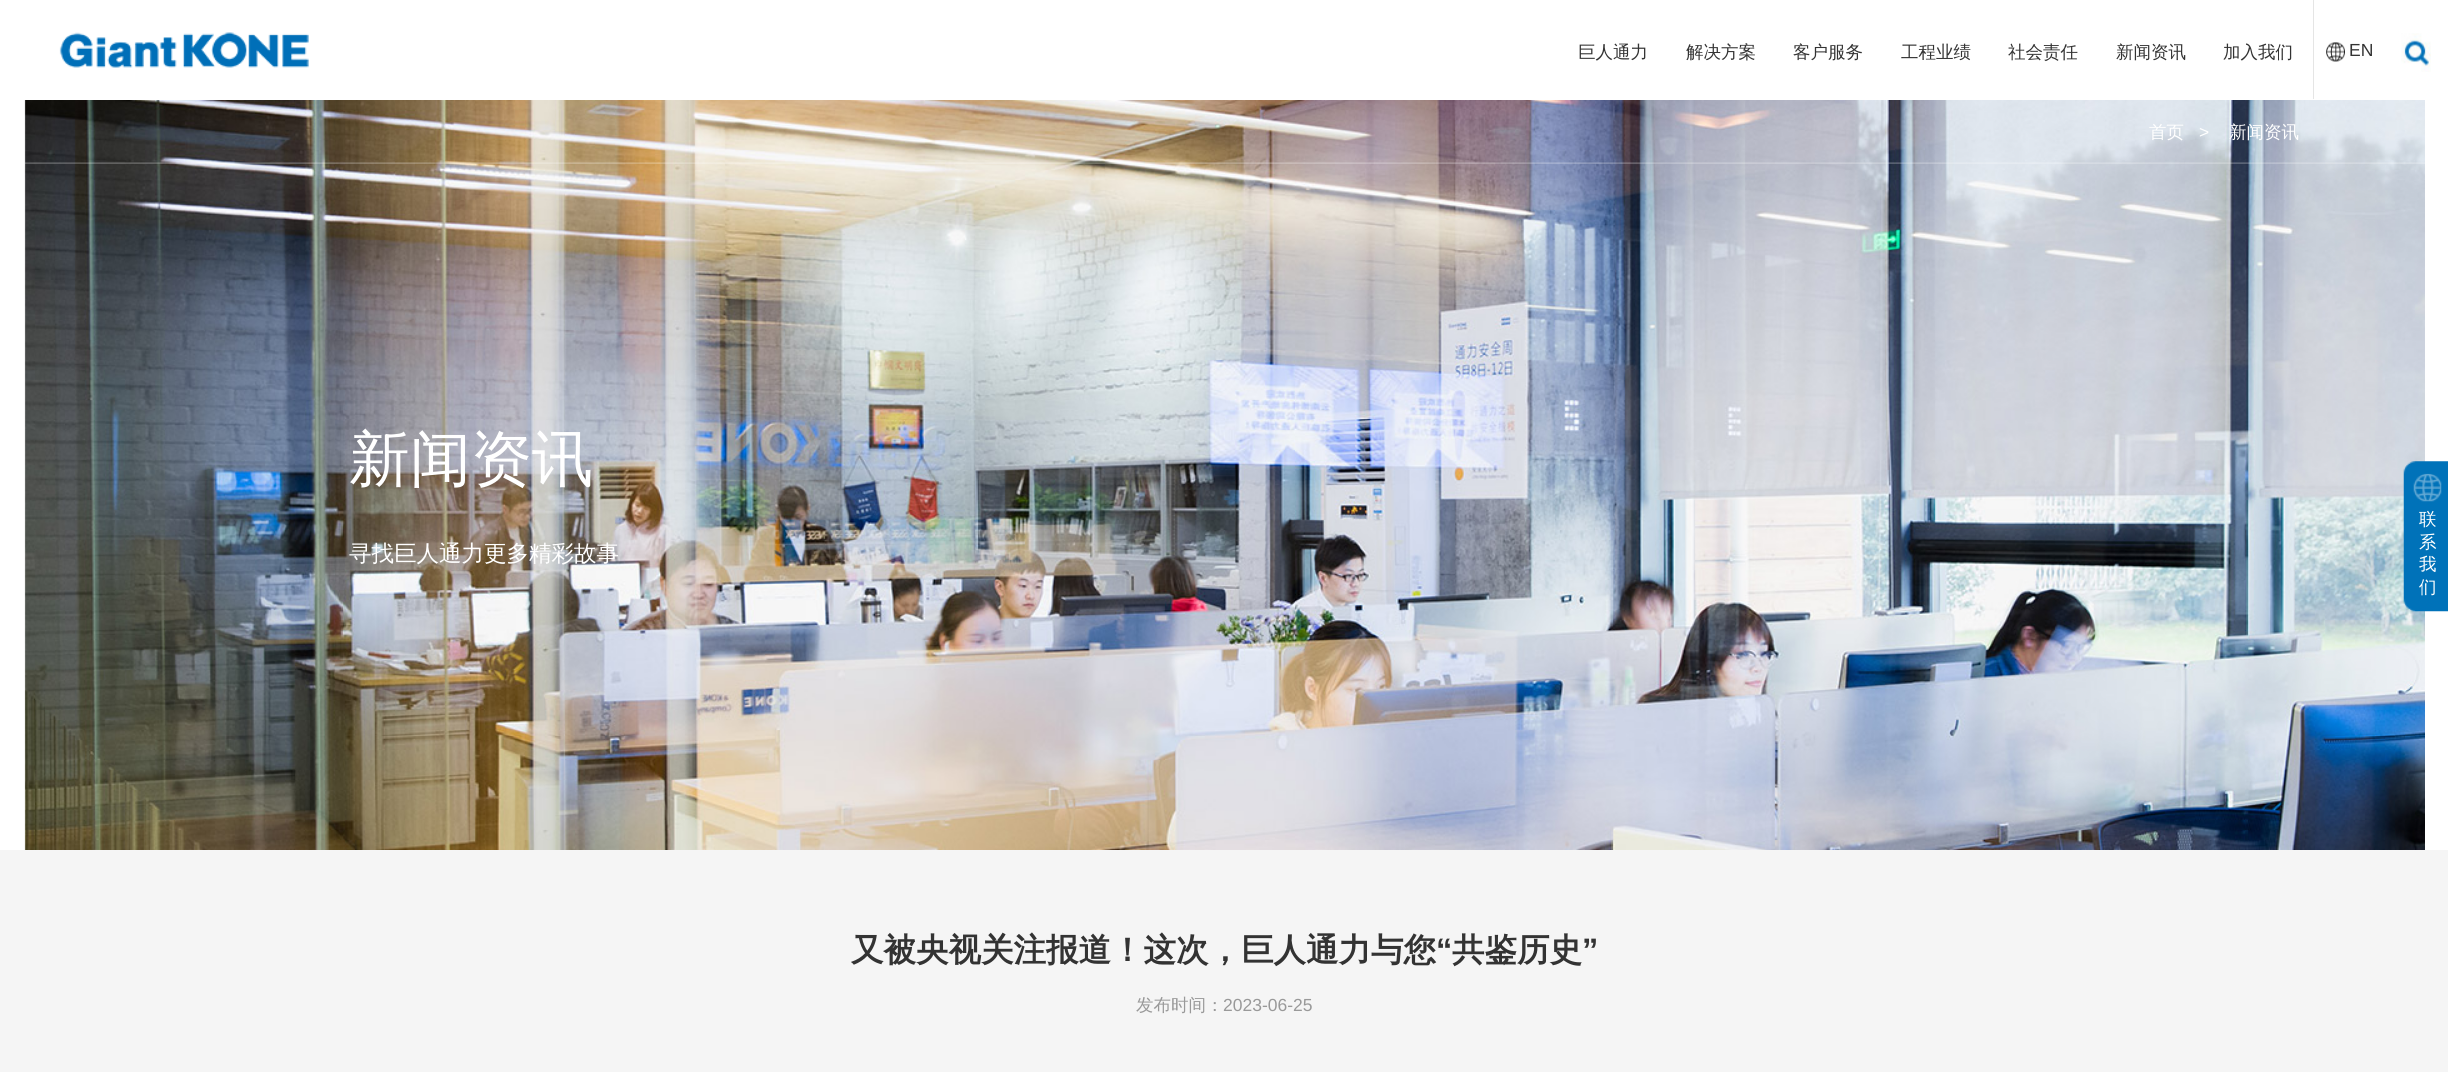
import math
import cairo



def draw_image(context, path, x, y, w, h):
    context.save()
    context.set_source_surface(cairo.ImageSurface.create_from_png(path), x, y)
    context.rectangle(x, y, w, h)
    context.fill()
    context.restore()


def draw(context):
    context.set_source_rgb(1, 1, 1)
    context.paint()
    draw_image(context, "images/1.png", 59, 32, 250, 36)
    context.set_source_rgb(229 / 255, 229 / 255, 229 / 255)
    context.rectangle(2313, 0, 1, 99)
    context.fill()
    draw_image(context, "images/2.png", 2326, 42, 19, 20)
    draw_image(context, "images/3.png", 2401, 33, 30, 39)
    draw_image(context, "images/4.png", 24, 100, 2401, 750)
    draw_image(context, "images/5.png", 25, 162, 2400, 2)
    draw_image(context, "images/6.png", 2403, 461, 45, 151)
    draw_image(context, "images/7.png", 2413, 473, 29, 29)
    context.set_source_rgb(245 / 255, 245 / 255, 245 / 255)
    context.rectangle(0, 850, 2448, 222)
    context.fill()
    context.select_font_face("WenQuanYi Zen Hei Medium")
    context.set_font_size(17.5)
    context.set_source_rgb(51 / 255, 51 / 255, 51 / 255)
    context.move_to(1578, 58)
    context.show_text("巨人通力")
    context.move_to(1686, 58)
    context.show_text("解决方案")
    context.move_to(1793, 58)
    context.show_text("客户服务")
    context.move_to(1901, 58)
    context.show_text("工程业绩")
    context.move_to(2008, 58)
    context.show_text("社会责任")
    context.move_to(2116, 58)
    context.show_text("新闻资讯")
    context.move_to(2223, 58)
    context.show_text("加入我们")
    context.select_font_face("Liberation Sans")
    context.move_to(2349, 56)
    context.show_text("EN")
    context.select_font_face("WenQuanYi Zen Hei Medium")
    context.set_source_rgb(1, 1, 1)
    context.move_to(2149, 138)
    context.show_text("首页")
    context.select_font_face("Liberation Sans")
    context.move_to(2199, 138)
    context.show_text(">")
    context.select_font_face("WenQuanYi Zen Hei Medium")
    context.move_to(2229, 138)
    context.show_text("新闻资讯")
    context.set_font_size(61)
    context.move_to(349, 480)
    context.show_text("新闻资讯")
    context.set_font_size(22.5)
    context.move_to(349, 561)
    context.show_text("寻找巨人通力更多精彩故事")
    context.set_font_size(17.5)
    context.move_to(2419, 525)
    context.show_text("联")
    context.move_to(2419, 548)
    context.show_text("系")
    context.move_to(2419, 570)
    context.show_text("我")
    context.move_to(2419, 593)
    context.show_text("们")
    context.select_font_face("WenQuanYi Zen Hei", cairo.FontSlant.NORMAL, cairo.FontWeight.BOLD)
    context.set_font_size(32.5)
    context.set_source_rgb(51 / 255, 51 / 255, 51 / 255)
    context.move_to(851, 961)
    context.show_text("又被央视关注报道！这次，巨人通力与您")
    context.select_font_face("Liberation Sans", cairo.FontSlant.NORMAL, cairo.FontWeight.BOLD)
    context.move_to(1436, 961)
    context.show_text("“")
    context.select_font_face("WenQuanYi Zen Hei", cairo.FontSlant.NORMAL, cairo.FontWeight.BOLD)
    context.move_to(1452, 961)
    context.show_text("共鉴历史")
    context.select_font_face("Liberation Sans", cairo.FontSlant.NORMAL, cairo.FontWeight.BOLD)
    context.move_to(1582, 961)
    context.show_text("”")
    context.select_font_face("WenQuanYi Zen Hei Medium")
    context.set_font_size(17.5)
    context.set_source_rgb(153 / 255, 153 / 255, 153 / 255)
    context.move_to(1136, 1011)
    context.show_text("发布时间：")
    context.select_font_face("Liberation Sans")
    context.move_to(1223, 1011)
    context.show_text("2023-06-25")


surface = cairo.ImageSurface(cairo.Format.RGB24, 2448, 1072)
context = cairo.Context(surface)
options = cairo.FontOptions()
options.set_hint_metrics(cairo.HintMetrics.OFF)
options.set_hint_style(cairo.HintStyle.NONE)
context.set_font_options(options)
context.set_miter_limit(4)
draw(context)
surface.write_to_png("out.png")
